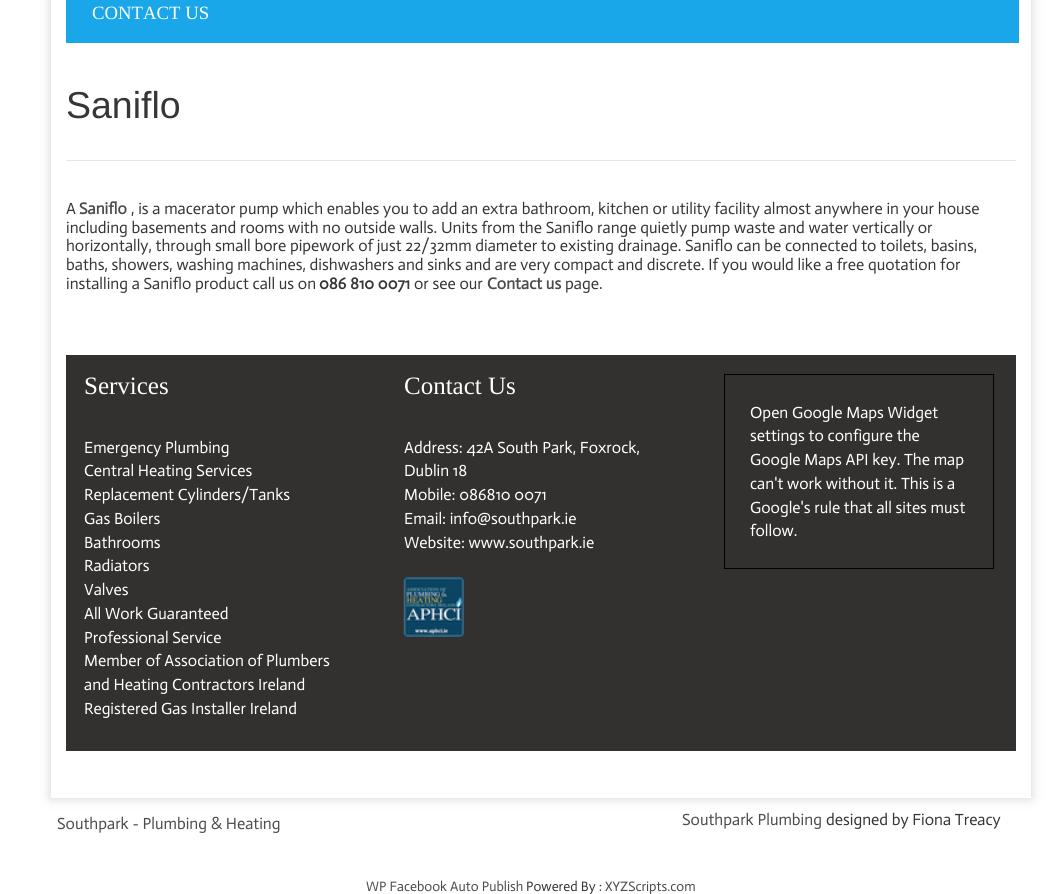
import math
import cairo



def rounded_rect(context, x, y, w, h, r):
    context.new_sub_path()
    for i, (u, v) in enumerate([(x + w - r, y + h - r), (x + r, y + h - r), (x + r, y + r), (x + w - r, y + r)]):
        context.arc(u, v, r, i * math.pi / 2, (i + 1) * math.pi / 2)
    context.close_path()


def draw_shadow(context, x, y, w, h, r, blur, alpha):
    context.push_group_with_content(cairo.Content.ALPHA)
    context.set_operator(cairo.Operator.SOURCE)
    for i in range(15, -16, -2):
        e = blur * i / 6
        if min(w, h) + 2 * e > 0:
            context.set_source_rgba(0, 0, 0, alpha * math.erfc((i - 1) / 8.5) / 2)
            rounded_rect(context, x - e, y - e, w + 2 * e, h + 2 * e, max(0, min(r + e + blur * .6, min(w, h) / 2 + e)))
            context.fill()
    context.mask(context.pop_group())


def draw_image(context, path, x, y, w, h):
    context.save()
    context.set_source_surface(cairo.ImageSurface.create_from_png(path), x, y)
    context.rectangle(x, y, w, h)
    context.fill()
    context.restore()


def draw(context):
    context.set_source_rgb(1, 1, 1)
    context.paint()
    context.set_source_rgb(0, 0, 0)
    draw_shadow(context, 51, -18, 980, 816, 0, 6, 0.17)
    context.set_source_rgb(1, 1, 1)
    context.rectangle(51, 0, 980, 798)
    context.fill()
    context.set_source_rgb(25 / 255, 167 / 255, 234 / 255)
    context.rectangle(66, 0, 953, 43)
    context.fill()
    context.set_source_rgb(230 / 255, 230 / 255, 230 / 255)
    context.rectangle(66, 160, 950, 1)
    context.fill()
    context.set_source_rgb(51 / 255, 48 / 255, 48 / 255)
    context.rectangle(66, 355, 950, 396)
    context.fill()
    draw_image(context, "images/1.png", 403, 577, 61, 60)
    context.rectangle(724.5, 374.5, 269, 194)
    context.set_source_rgb(0, 0, 0)
    context.set_line_width(1)
    context.stroke()
    context.select_font_face("Liberation Serif")
    context.set_font_size(18.75)
    context.set_source_rgb(1, 1, 1)
    context.move_to(92, 19)
    context.show_text("CONTACT US")
    context.select_font_face("Liberation Sans")
    context.set_font_size(37.5)
    context.set_source_rgb(55 / 255, 54 / 255, 54 / 255)
    context.move_to(66, 118)
    context.show_text("Saniflo")
    context.select_font_face("Actor")
    context.set_font_size(16.25)
    context.move_to(66, 214)
    context.show_text("A")
    context.select_font_face("Actor", cairo.FontSlant.NORMAL, cairo.FontWeight.BOLD)
    context.set_source_rgb(77 / 255, 76 / 255, 76 / 255)
    context.move_to(79, 214)
    context.show_text("Saniflo")
    context.select_font_face("Actor")
    context.set_source_rgb(55 / 255, 54 / 255, 54 / 255)
    context.move_to(131, 214)
    context.show_text(", is a macerator pump which enables you to add an extra bathroom, kitchen or utility facility almost anywhere in your house")
    context.move_to(66, 233)
    context.show_text("including basements and rooms with no outside walls. Units from the Saniflo range quietly pump waste and water vertically or")
    context.move_to(66, 251)
    context.show_text("horizontally, through small bore pipework of just 22/32mm diameter to existing drainage. Saniflo can be connected to toilets, basins,")
    context.move_to(66, 270)
    context.show_text("baths, showers, washing machines, dishwashers and sinks and are very compact and discrete. If you would like a free quotation for")
    context.move_to(66, 289)
    context.show_text("installing a Saniflo product call us on")
    context.select_font_face("Actor", cairo.FontSlant.NORMAL, cairo.FontWeight.BOLD)
    context.move_to(319, 289)
    context.show_text("086 810 0071")
    context.select_font_face("Actor")
    context.move_to(414, 289)
    context.show_text("or see our")
    context.select_font_face("Actor", cairo.FontSlant.NORMAL, cairo.FontWeight.BOLD)
    context.set_source_rgb(77 / 255, 76 / 255, 76 / 255)
    context.move_to(487, 289)
    context.show_text("Contact us")
    context.select_font_face("Actor")
    context.set_source_rgb(55 / 255, 54 / 255, 54 / 255)
    context.move_to(565, 289)
    context.show_text("page.")
    context.select_font_face("Liberation Serif")
    context.set_font_size(25)
    context.set_source_rgb(1, 1, 1)
    context.move_to(84, 394)
    context.show_text("Services")
    context.select_font_face("Actor")
    context.set_font_size(16.25)
    context.move_to(84, 453)
    context.show_text("Emergency Plumbing")
    context.move_to(84, 476)
    context.show_text("Central Heating Services")
    context.move_to(84, 500)
    context.show_text("Replacement Cylinders/Tanks")
    context.move_to(84, 524)
    context.show_text("Gas Boilers")
    context.move_to(84, 548)
    context.show_text("Bathrooms")
    context.move_to(84, 571)
    context.show_text("Radiators")
    context.move_to(84, 595)
    context.show_text("Valves")
    context.move_to(84, 619)
    context.show_text("All Work Guaranteed")
    context.move_to(84, 643)
    context.show_text("Professional Service")
    context.move_to(84, 666)
    context.show_text("Member of Association of Plumbers")
    context.move_to(84, 690)
    context.show_text("and Heating Contractors Ireland")
    context.move_to(84, 714)
    context.show_text("Registered Gas Installer Ireland")
    context.select_font_face("Liberation Serif")
    context.set_font_size(25)
    context.move_to(404, 394)
    context.show_text("Contact Us")
    context.select_font_face("Actor")
    context.set_font_size(16.25)
    context.move_to(404, 453)
    context.show_text("Address: 42A South Park, Foxrock,")
    context.move_to(404, 476)
    context.show_text("Dublin 18")
    context.move_to(404, 500)
    context.show_text("Mobile: 086810 0071")
    context.move_to(404, 524)
    context.show_text("Email: info@southpark.ie")
    context.move_to(404, 548)
    context.show_text("Website: www.southpark.ie")
    context.move_to(750, 418)
    context.show_text("Open Google Maps Widget")
    context.move_to(750, 441)
    context.show_text("settings to configure the")
    context.move_to(750, 465)
    context.show_text("Google Maps API key. The map")
    context.move_to(750, 489)
    context.show_text("can't work without it. This is a")
    context.move_to(750, 513)
    context.show_text("Google's rule that all sites must")
    context.move_to(750, 536)
    context.show_text("follow.")
    context.set_source_rgb(77 / 255, 76 / 255, 76 / 255)
    context.move_to(57, 829)
    context.show_text("Southpark - Plumbing & Heating")
    context.move_to(682, 825)
    context.show_text("Southpark Plumbing")
    context.set_source_rgb(55 / 255, 54 / 255, 54 / 255)
    context.move_to(826, 825)
    context.show_text("designed by Fiona Treacy")
    context.set_font_size(13.75)
    context.set_source_rgb(77 / 255, 76 / 255, 76 / 255)
    context.move_to(366, 891)
    context.show_text("WP Facebook Auto Publish")
    context.set_source_rgb(55 / 255, 54 / 255, 54 / 255)
    context.move_to(526, 891)
    context.show_text("Powered By :")
    context.set_source_rgb(77 / 255, 76 / 255, 76 / 255)
    context.move_to(605, 891)
    context.show_text("XYZScripts.com")


surface = cairo.ImageSurface(cairo.Format.RGB24, 1061, 894)
context = cairo.Context(surface)
options = cairo.FontOptions()
options.set_hint_metrics(cairo.HintMetrics.OFF)
options.set_hint_style(cairo.HintStyle.NONE)
context.set_font_options(options)
context.set_miter_limit(4)
draw(context)
surface.write_to_png("out.png")
